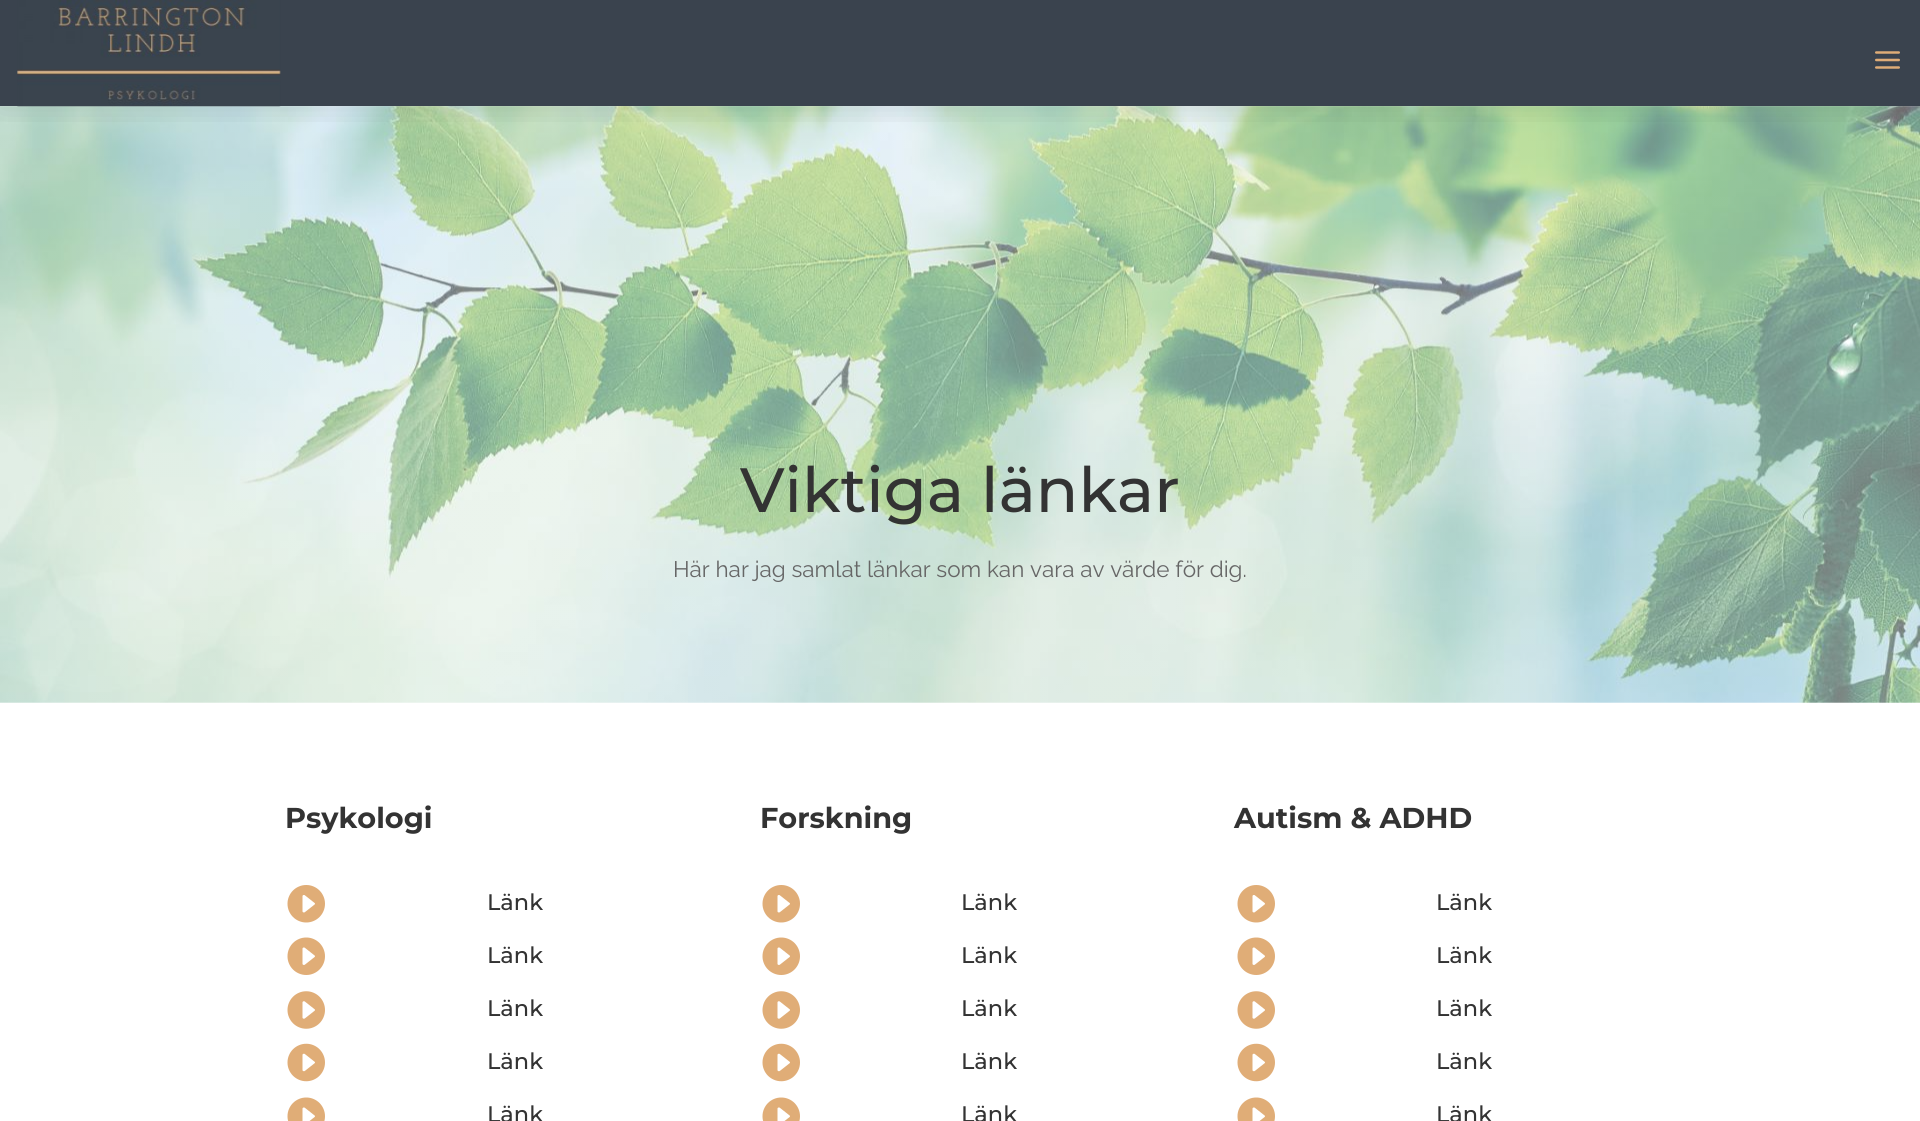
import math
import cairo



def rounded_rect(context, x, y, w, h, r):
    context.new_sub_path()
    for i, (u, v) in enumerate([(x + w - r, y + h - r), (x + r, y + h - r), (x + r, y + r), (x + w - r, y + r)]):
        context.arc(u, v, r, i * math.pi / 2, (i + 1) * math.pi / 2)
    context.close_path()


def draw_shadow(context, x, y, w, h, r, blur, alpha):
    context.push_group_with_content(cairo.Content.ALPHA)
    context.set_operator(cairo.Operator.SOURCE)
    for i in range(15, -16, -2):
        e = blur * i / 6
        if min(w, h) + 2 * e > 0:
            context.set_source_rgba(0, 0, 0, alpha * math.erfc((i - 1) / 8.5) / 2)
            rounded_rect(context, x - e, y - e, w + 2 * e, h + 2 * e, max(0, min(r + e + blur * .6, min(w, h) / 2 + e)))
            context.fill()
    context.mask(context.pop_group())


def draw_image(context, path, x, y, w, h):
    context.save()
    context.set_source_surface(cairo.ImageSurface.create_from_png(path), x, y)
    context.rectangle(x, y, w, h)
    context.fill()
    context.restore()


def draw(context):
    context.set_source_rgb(58 / 255, 67 / 255, 78 / 255)
    context.paint()
    context.set_source_rgb(1, 1, 1)
    context.rectangle(0, 106, 1920, 1015)
    context.fill()
    draw_image(context, "images/3.png", 0, 106, 1920, 597)
    context.save()
    context.rectangle(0, 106, 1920, 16)
    context.clip()
    context.set_source_rgb(0, 0, 0)
    draw_shadow(context, 0, 3, 1920, 106, 0, 15.5, 0.1)
    context.restore()
    draw_image(context, "images/1.png", 17, 0, 264, 107)
    draw_image(context, "images/2.png", 1875, 51, 25, 18)
    draw_image(context, "images/4.png", 287, 885, 38, 38)
    draw_image(context, "images/5.png", 287, 937, 38, 38)
    draw_image(context, "images/6.png", 287, 991, 38, 38)
    draw_image(context, "images/7.png", 287, 1043, 38, 39)
    draw_image(context, "images/8.png", 287, 1097, 38, 24)
    draw_image(context, "images/4.png", 762, 885, 38, 38)
    draw_image(context, "images/5.png", 762, 937, 38, 38)
    draw_image(context, "images/6.png", 762, 991, 38, 38)
    draw_image(context, "images/7.png", 762, 1043, 38, 39)
    draw_image(context, "images/8.png", 762, 1097, 38, 24)
    draw_image(context, "images/4.png", 1237, 885, 38, 38)
    draw_image(context, "images/5.png", 1237, 937, 38, 38)
    draw_image(context, "images/6.png", 1237, 991, 38, 38)
    draw_image(context, "images/7.png", 1237, 1043, 38, 39)
    draw_image(context, "images/8.png", 1237, 1097, 38, 24)
    context.select_font_face("Montserrat Thin")
    context.set_font_size(62.5)
    context.set_source_rgb(51 / 255, 51 / 255, 51 / 255)
    context.move_to(740, 512)
    context.show_text("Viktiga länkar")
    context.select_font_face("Raleway Thin")
    context.set_font_size(22.5)
    context.set_source_rgb(102 / 255, 102 / 255, 102 / 255)
    context.move_to(673, 577)
    context.show_text("Här har jag samlat länkar som kan vara av värde för dig.")
    context.select_font_face("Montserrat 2 Thin")
    context.set_font_size(28.75)
    context.set_source_rgb(51 / 255, 51 / 255, 51 / 255)
    context.move_to(285, 828)
    context.show_text("Psykologi")
    context.select_font_face("Montserrat Thin")
    context.set_font_size(22.5)
    context.move_to(487, 910)
    context.show_text("Länk")
    context.move_to(487, 963)
    context.show_text("Länk")
    context.move_to(487, 1016)
    context.show_text("Länk")
    context.move_to(487, 1069)
    context.show_text("Länk")
    context.move_to(487, 1122)
    context.show_text("Länk")
    context.select_font_face("Montserrat 2 Thin")
    context.set_font_size(28.75)
    context.move_to(760, 828)
    context.show_text("Forskning")
    context.select_font_face("Montserrat Thin")
    context.set_font_size(22.5)
    context.move_to(961, 910)
    context.show_text("Länk")
    context.move_to(961, 963)
    context.show_text("Länk")
    context.move_to(961, 1016)
    context.show_text("Länk")
    context.move_to(961, 1069)
    context.show_text("Länk")
    context.move_to(961, 1122)
    context.show_text("Länk")
    context.select_font_face("Montserrat 2 Thin")
    context.set_font_size(28.75)
    context.move_to(1234, 828)
    context.show_text("Autism & ADHD")
    context.select_font_face("Montserrat Thin")
    context.set_font_size(22.5)
    context.move_to(1436, 910)
    context.show_text("Länk")
    context.move_to(1436, 963)
    context.show_text("Länk")
    context.move_to(1436, 1016)
    context.show_text("Länk")
    context.move_to(1436, 1069)
    context.show_text("Länk")
    context.move_to(1436, 1122)
    context.show_text("Länk")


surface = cairo.ImageSurface(cairo.Format.RGB24, 1920, 1121)
context = cairo.Context(surface)
options = cairo.FontOptions()
options.set_hint_metrics(cairo.HintMetrics.OFF)
options.set_hint_style(cairo.HintStyle.NONE)
context.set_font_options(options)
context.set_miter_limit(4)
draw(context)
surface.write_to_png("out.png")
